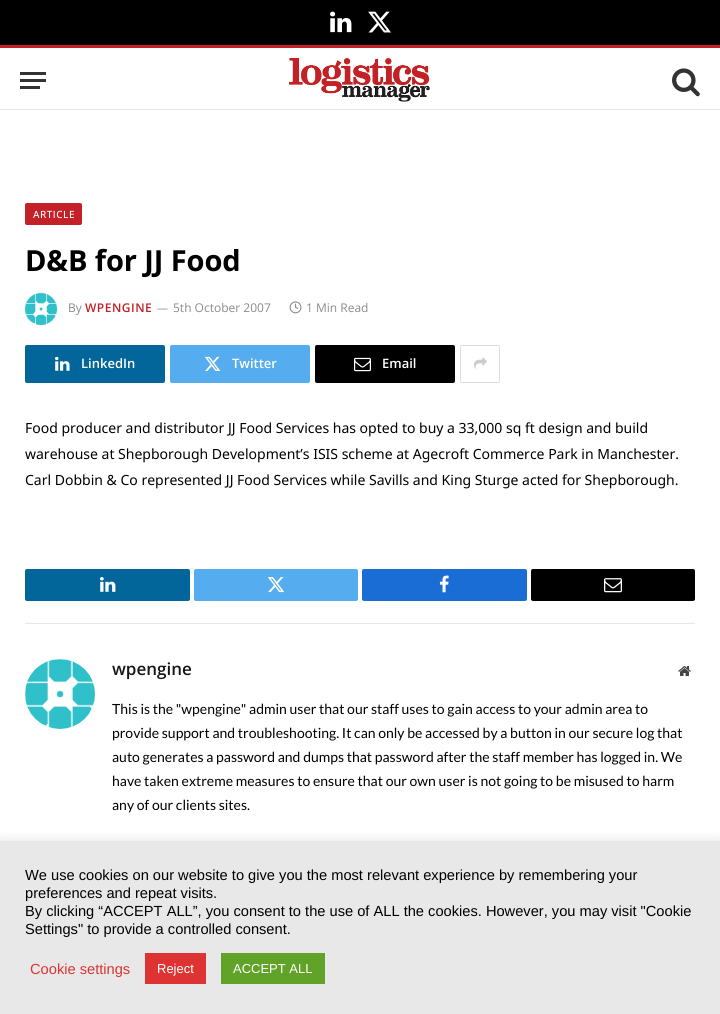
import math
import cairo



def draw_spaced(context, x, y, s, letter, word):
    context.move_to(x, y)
    for ch in s:
        context.show_text(ch)
        context.rel_move_to(letter + word * (ch == ' '), 0)


def rounded_rect(context, x, y, w, h, r):
    context.new_sub_path()
    for i, (u, v) in enumerate([(x + w - r, y + h - r), (x + r, y + h - r), (x + r, y + r), (x + w - r, y + r)]):
        context.arc(u, v, r, i * math.pi / 2, (i + 1) * math.pi / 2)
    context.close_path()


def draw_shadow(context, x, y, w, h, r, blur, alpha):
    context.push_group_with_content(cairo.Content.ALPHA)
    context.set_operator(cairo.Operator.SOURCE)
    for i in range(15, -16, -2):
        e = blur * i / 6
        if min(w, h) + 2 * e > 0:
            context.set_source_rgba(0, 0, 0, alpha * math.erfc((i - 1) / 8.5) / 2)
            rounded_rect(context, x - e, y - e, w + 2 * e, h + 2 * e, max(0, min(r + e + blur * .6, min(w, h) / 2 + e)))
            context.fill()
    context.mask(context.pop_group())


def draw_image(context, path, x, y, w, h):
    context.save()
    context.set_source_surface(cairo.ImageSurface.create_from_png(path), x, y)
    context.rectangle(x, y, w, h)
    context.fill()
    context.restore()


def draw(context):
    context.set_source_rgb(1, 1, 1)
    context.paint()
    context.set_source_rgb(0, 0, 0)
    context.rectangle(0, 0, 720, 45)
    context.fill()
    draw_image(context, "images/1.png", 330, 11, 22, 22)
    draw_image(context, "images/2.png", 368, 11, 23, 22)
    context.set_source_rgb(196 / 255, 32 / 255, 39 / 255)
    context.rectangle(0, 45, 720, 3)
    context.fill()
    context.set_source_rgb(232 / 255, 232 / 255, 232 / 255)
    context.rectangle(0, 109, 720, 1)
    context.fill()
    context.set_source_rgb(51 / 255, 51 / 255, 51 / 255)
    context.rectangle(20, 86, 20, 3)
    context.fill()
    context.rectangle(20, 72, 26, 3)
    context.fill()
    context.rectangle(20, 79, 26, 3)
    context.fill()
    draw_image(context, "images/3.png", 289, 58, 141, 44)
    draw_image(context, "images/4.png", 672, 68, 28, 29)
    context.set_source_rgb(196 / 255, 32 / 255, 39 / 255)
    rounded_rect(context, 25, 203, 57, 22, 2)
    context.fill()
    context.save()
    context.set_fill_rule(cairo.FillRule.EVEN_ODD)
    context.new_path()
    context.move_to(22, 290)
    context.line_to(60, 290)
    context.line_to(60, 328)
    context.line_to(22, 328)
    context.close_path()
    context.move_to(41, 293)
    context.curve_to(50, 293, 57, 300, 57, 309)
    context.curve_to(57, 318, 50, 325, 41, 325)
    context.curve_to(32, 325, 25, 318, 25, 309)
    context.curve_to(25, 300, 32, 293, 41, 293)
    context.close_path()
    context.clip()
    context.set_source_rgb(0, 0, 0)
    draw_shadow(context, 25, 293, 32, 32, 16, 0.5, 0.2)
    context.restore()
    draw_image(context, "images/5.png", 25, 293, 32, 32)
    draw_image(context, "images/6.png", 289, 301, 13, 13)
    context.set_source_rgb(2 / 255, 102 / 255, 154 / 255)
    rounded_rect(context, 25, 345, 140, 38, 2)
    context.fill()
    draw_image(context, "images/7.png", 55, 356, 15, 15)
    context.set_source_rgb(85 / 255, 172 / 255, 239 / 255)
    rounded_rect(context, 170, 345, 140, 38, 2)
    context.fill()
    draw_image(context, "images/8.png", 204, 356, 17, 15)
    context.set_source_rgb(0, 0, 0)
    rounded_rect(context, 315, 345, 140, 38, 2)
    context.fill()
    draw_image(context, "images/9.png", 354, 357, 17, 15)
    rounded_rect(context, 460.5, 345.5, 39, 37, 1.5)
    context.set_source_rgb(221 / 255, 221 / 255, 221 / 255)
    context.set_line_width(1)
    context.stroke()
    draw_image(context, "images/10.png", 474, 357, 13, 12)
    context.set_source_rgb(2 / 255, 102 / 255, 154 / 255)
    rounded_rect(context, 25, 569, 165, 32, 2)
    context.fill()
    draw_image(context, "images/11.png", 100, 577, 16, 15)
    context.set_source_rgb(85 / 255, 172 / 255, 239 / 255)
    rounded_rect(context, 194, 569, 164, 32, 2)
    context.fill()
    draw_image(context, "images/12.png", 267, 577, 18, 16)
    context.set_source_rgb(26 / 255, 109 / 255, 212 / 255)
    rounded_rect(context, 362, 569, 165, 32, 2)
    context.fill()
    draw_image(context, "images/13.png", 439, 575, 10, 18)
    context.set_source_rgb(0, 0, 0)
    rounded_rect(context, 531, 569, 164, 32, 2)
    context.fill()
    draw_image(context, "images/14.png", 604, 578, 18, 15)
    context.set_source_rgb(232 / 255, 232 / 255, 232 / 255)
    context.rectangle(25, 623, 670, 1)
    context.fill()
    draw_image(context, "images/15.png", 25, 659, 70, 70)
    draw_image(context, "images/16.png", 678, 666, 13, 10)
    context.set_source_rgb(172 / 255, 171 / 255, 171 / 255)
    draw_shadow(context, 0, 840, 720, 173, 0, 5, 0.3)
    context.set_source_rgb(232 / 255, 232 / 255, 232 / 255)
    context.rectangle(0, 841, 720, 173)
    context.fill()
    context.set_source_rgb(221 / 255, 51 / 255, 51 / 255)
    context.rectangle(145, 953, 61, 31)
    context.fill()
    context.set_source_rgb(97 / 255, 162 / 255, 41 / 255)
    context.rectangle(221, 953, 104, 31)
    context.fill()
    context.select_font_face("Open Sans Medium")
    context.set_font_size(10)
    context.set_source_rgb(1, 1, 1)
    draw_spaced(context, 33, 218, "ARTICLE", 0.5, 0)
    context.select_font_face("Open Sans", cairo.FontSlant.NORMAL, cairo.FontWeight.BOLD)
    context.set_font_size(29)
    context.set_source_rgb(0, 0, 0)
    draw_spaced(context, 25, 271, "D&B for JJ Food", -0.1, 0)
    context.select_font_face("Open Sans")
    context.set_font_size(12)
    context.set_source_rgb(138 / 255, 138 / 255, 138 / 255)
    context.move_to(68, 312)
    context.show_text("By")
    context.select_font_face("Open Sans SemiBold")
    context.set_source_rgb(196 / 255, 33 / 255, 39 / 255)
    draw_spaced(context, 85, 312, "WPENGINE", 0.5, 0)
    context.select_font_face("Open Sans")
    context.set_font_size(11)
    context.set_source_rgb(138 / 255, 138 / 255, 138 / 255)
    context.move_to(157, 312)
    context.show_text("—")
    context.set_font_size(12)
    context.move_to(173, 312)
    context.show_text("5th October 2007")
    context.move_to(306, 312)
    context.show_text("1 Min Read")
    context.select_font_face("Open Sans SemiBold")
    context.set_font_size(13)
    context.set_source_rgb(1, 1, 1)
    context.move_to(81, 368)
    context.show_text("LinkedIn")
    context.move_to(232, 368)
    context.show_text("Twitter")
    context.move_to(382, 368)
    context.show_text("Email")
    context.select_font_face("Noto Sans")
    context.set_font_size(14)
    context.set_source_rgb(0, 0, 0)
    context.move_to(25, 433)
    context.show_text("Food producer and distributor JJ Food Services has opted to buy a 33,000 sq ft design and build")
    context.move_to(25, 459)
    context.show_text("warehouse at Shepborough Development’s ISIS scheme at Agecroft Commerce Park in Manchester.")
    context.move_to(25, 485)
    context.show_text("Carl Dobbin & Co represented JJ Food Services while Savills and King Sturge acted for Shepborough.")
    context.select_font_face("Open Sans SemiBold")
    context.set_font_size(17)
    context.set_source_rgb(22 / 255, 22 / 255, 22 / 255)
    context.move_to(112, 675)
    context.show_text("wpengine")
    context.select_font_face("Lato")
    context.set_font_size(14)
    context.set_source_rgb(0, 0, 0)
    context.move_to(112, 714)
    context.show_text("This is the \"wpengine\" admin user that our staff uses to gain access to your admin area to")
    context.move_to(112, 738)
    context.show_text("provide support and troubleshooting. It can only be accessed by a button in our secure log that")
    context.move_to(112, 762)
    context.show_text("auto generates a password and dumps that password after the staff member has logged in. We")
    context.move_to(112, 786)
    context.show_text("have taken extreme measures to ensure that our own user is not going to be misused to harm")
    context.move_to(112, 810)
    context.show_text("any of our clients sites.")
    context.select_font_face("Liberation Sans")
    context.set_font_size(14.65)
    context.move_to(25, 880)
    context.show_text("We use cookies on our website to give you the most relevant experience by remembering your")
    context.move_to(25, 898)
    context.show_text("preferences and repeat visits.")
    context.move_to(25, 916)
    context.show_text("By clicking “ACCEPT ALL”, you consent to the use of ALL the cookies. However, you may visit \"Cookie")
    context.move_to(25, 934)
    context.show_text("Settings\" to provide a controlled consent.")
    context.set_source_rgb(221 / 255, 51 / 255, 51 / 255)
    context.move_to(30, 974)
    context.show_text("Cookie settings")
    context.set_font_size(13)
    context.set_source_rgb(1, 1, 1)
    context.move_to(157, 973)
    context.show_text("Reject")
    context.move_to(233, 973)
    context.show_text("ACCEPT ALL")


surface = cairo.ImageSurface(cairo.Format.RGB24, 720, 1014)
context = cairo.Context(surface)
options = cairo.FontOptions()
options.set_hint_metrics(cairo.HintMetrics.OFF)
options.set_hint_style(cairo.HintStyle.NONE)
context.set_font_options(options)
context.set_miter_limit(4)
draw(context)
surface.write_to_png("out.png")
